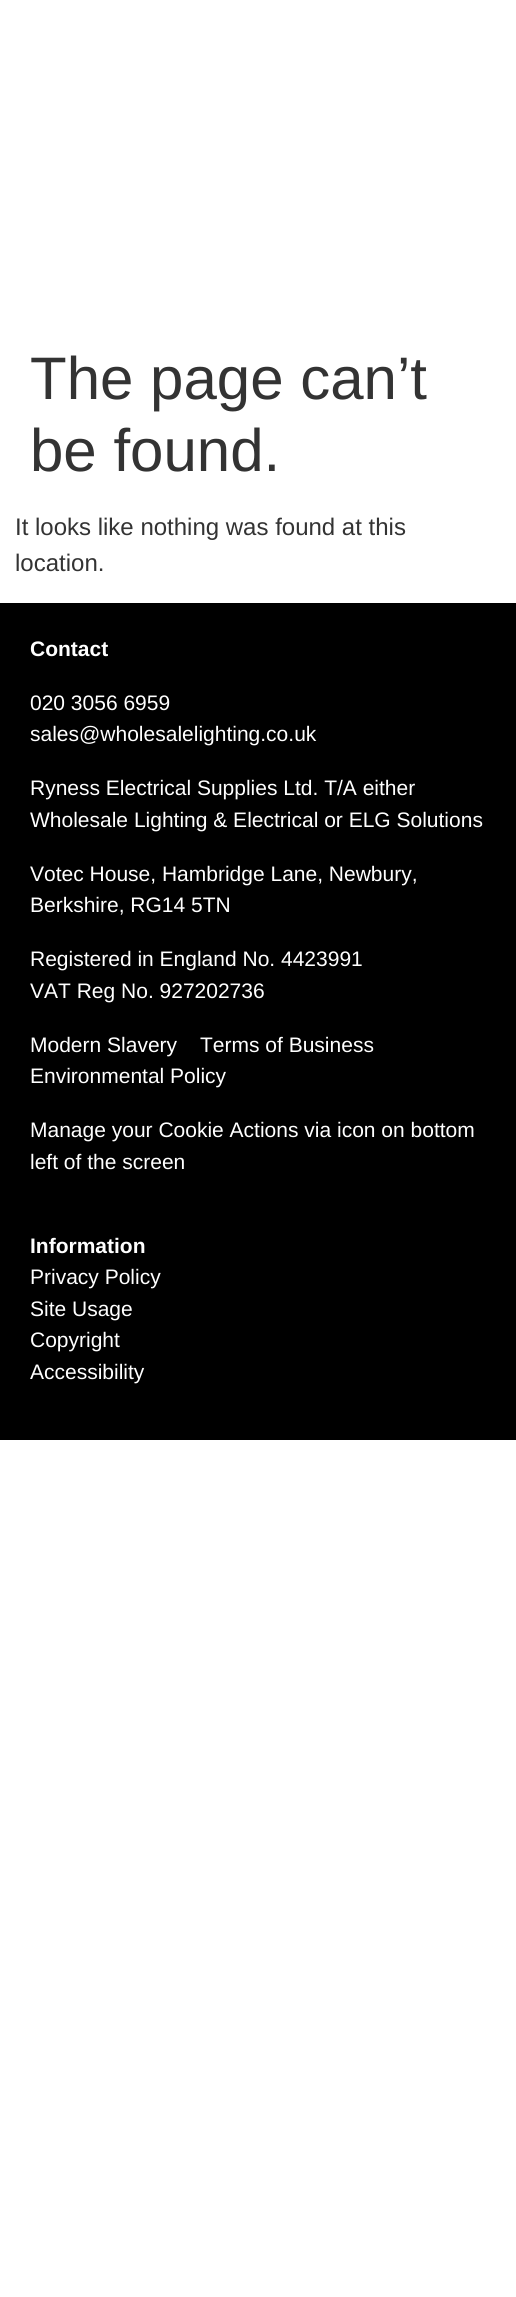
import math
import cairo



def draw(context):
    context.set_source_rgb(1, 1, 1)
    context.paint()
    context.set_source_rgb(0, 0, 0)
    context.rectangle(0, 603, 516, 837)
    context.fill()
    context.select_font_face("Liberation Sans")
    context.set_font_size(60)
    context.set_source_rgb(51 / 255, 51 / 255, 51 / 255)
    context.move_to(30, 399)
    context.show_text("The page can’t")
    context.move_to(30, 471)
    context.show_text("be found.")
    context.set_font_size(24)
    context.move_to(15, 535)
    context.show_text("It looks like nothing was found at this")
    context.move_to(15, 571)
    context.show_text("location.")
    context.select_font_face("Liberation Sans", cairo.FontSlant.NORMAL, cairo.FontWeight.BOLD)
    context.set_font_size(21)
    context.set_source_rgb(1, 1, 1)
    context.move_to(30, 656)
    context.show_text("Contact")
    context.select_font_face("Liberation Sans")
    context.move_to(30, 710)
    context.show_text("020 3056 6959")
    context.move_to(30, 741)
    context.show_text("sales@wholesalelighting.co.uk")
    context.move_to(30, 795)
    context.show_text("Ryness Electrical Supplies Ltd. T/A either")
    context.move_to(30, 827)
    context.show_text("Wholesale Lighting & Electrical or ELG Solutions")
    context.move_to(30, 881)
    context.show_text("Votec House, Hambridge Lane, Newbury,")
    context.move_to(30, 912)
    context.show_text("Berkshire, RG14 5TN")
    context.move_to(30, 966)
    context.show_text("Registered in England No. 4423991")
    context.move_to(30, 998)
    context.show_text("VAT Reg No. 927202736")
    context.move_to(30, 1052)
    context.show_text("Modern Slavery")
    context.move_to(200, 1052)
    context.show_text("Terms of Business")
    context.move_to(30, 1083)
    context.show_text("Environmental Policy")
    context.move_to(30, 1137)
    context.show_text("Manage your Cookie Actions via icon on bottom")
    context.move_to(30, 1169)
    context.show_text("left of the screen")
    context.select_font_face("Liberation Sans", cairo.FontSlant.NORMAL, cairo.FontWeight.BOLD)
    context.move_to(30, 1253)
    context.show_text("Information")
    context.select_font_face("Liberation Sans")
    context.move_to(30, 1284)
    context.show_text("Privacy Policy")
    context.move_to(30, 1316)
    context.show_text("Site Usage")
    context.move_to(30, 1347)
    context.show_text("Copyright")
    context.move_to(30, 1379)
    context.show_text("Accessibility")


surface = cairo.ImageSurface(cairo.Format.RGB24, 516, 2297)
context = cairo.Context(surface)
options = cairo.FontOptions()
options.set_hint_metrics(cairo.HintMetrics.OFF)
options.set_hint_style(cairo.HintStyle.NONE)
context.set_font_options(options)
context.set_miter_limit(4)
draw(context)
surface.write_to_png("out.png")
